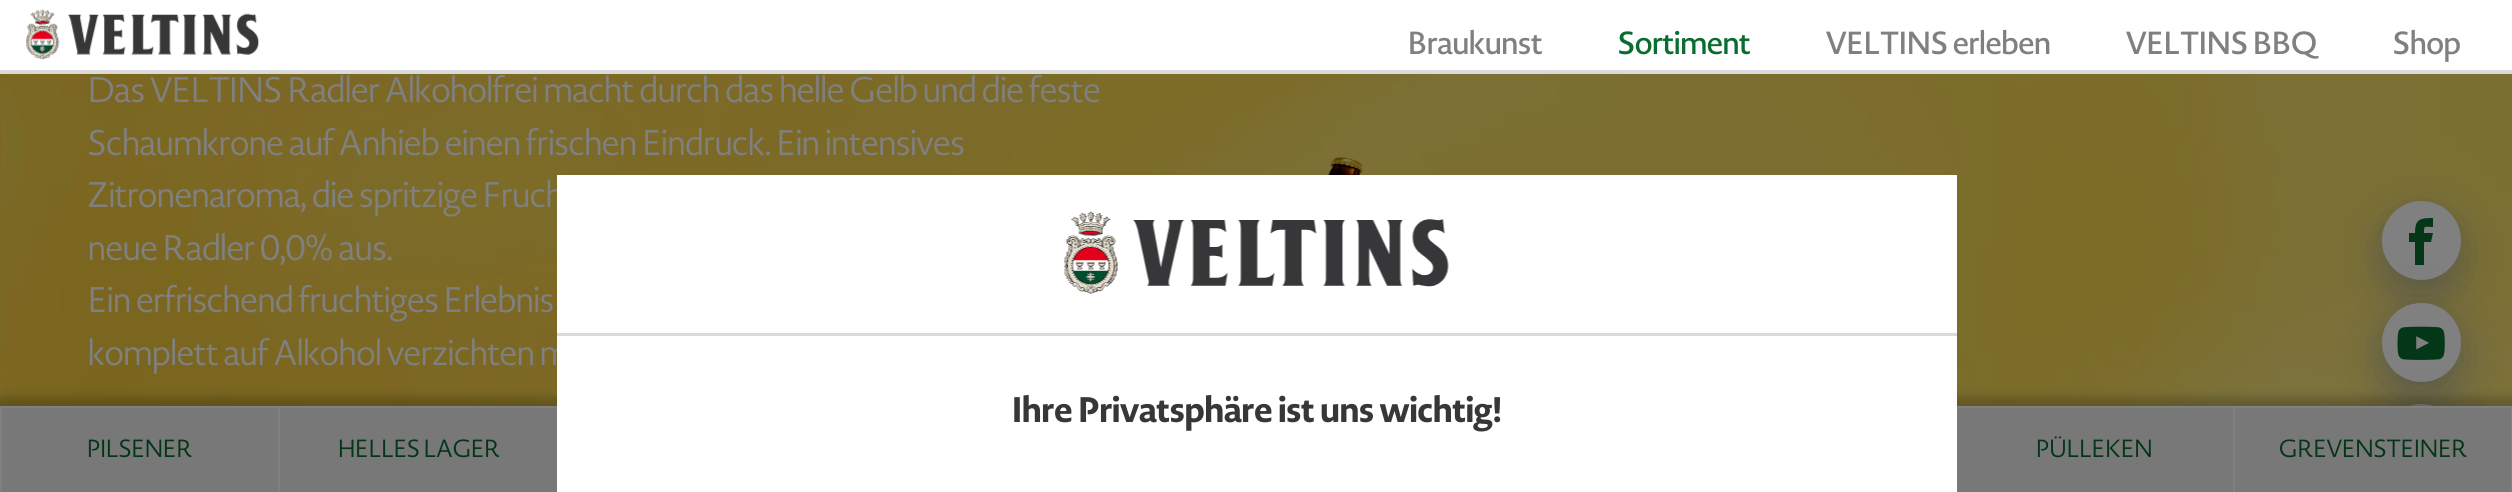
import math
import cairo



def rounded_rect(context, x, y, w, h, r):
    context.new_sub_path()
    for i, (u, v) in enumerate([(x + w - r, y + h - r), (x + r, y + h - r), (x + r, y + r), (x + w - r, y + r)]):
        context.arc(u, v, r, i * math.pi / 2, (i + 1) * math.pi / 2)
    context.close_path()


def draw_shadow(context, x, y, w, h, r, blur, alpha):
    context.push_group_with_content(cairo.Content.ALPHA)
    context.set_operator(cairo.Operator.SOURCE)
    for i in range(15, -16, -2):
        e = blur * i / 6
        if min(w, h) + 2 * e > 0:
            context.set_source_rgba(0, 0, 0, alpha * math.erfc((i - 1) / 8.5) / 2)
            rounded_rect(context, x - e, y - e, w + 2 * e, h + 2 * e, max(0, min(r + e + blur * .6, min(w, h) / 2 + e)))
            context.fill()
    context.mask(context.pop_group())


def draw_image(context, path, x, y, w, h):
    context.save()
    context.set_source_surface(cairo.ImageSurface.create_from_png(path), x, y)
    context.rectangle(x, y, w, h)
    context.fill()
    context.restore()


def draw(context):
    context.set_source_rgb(1, 1, 1)
    context.paint()
    context.set_source_rgb(218 / 255, 218 / 255, 218 / 255)
    context.rectangle(0, 70, 2512, 4)
    context.fill()
    draw_image(context, "images/1.png", 26, 9, 234, 51)
    draw_image(context, "images/2.png", 0, 74, 2512, 332)
    draw_image(context, "images/3.png", 1327, 157, 37, 18)
    context.set_source_rgb(75 / 255, 79 / 255, 83 / 255)
    draw_shadow(context, 2382, 215, 79, 79, 39.5, 21, 0.7)
    context.set_source_rgb(128 / 255, 128 / 255, 128 / 255)
    context.arc(2421.5, 240.5, 39.5, 0, 2 * math.pi)
    context.fill()
    context.set_source_rgb(5 / 255, 54 / 255, 24 / 255)
    context.new_path()
    context.move_to(2409, 242)
    context.line_to(2415, 242)
    context.line_to(2415, 265)
    context.line_to(2424, 265)
    context.line_to(2424, 242)
    context.line_to(2431, 242)
    context.line_to(2433, 233)
    context.line_to(2424, 233)
    context.curve_to(2424, 225, 2424, 227, 2433, 227)
    context.line_to(2433, 218)
    context.curve_to(2420, 218, 2415, 219, 2415, 233)
    context.line_to(2409, 233)
    context.close_path()
    context.fill()
    context.set_source_rgb(75 / 255, 79 / 255, 83 / 255)
    draw_shadow(context, 2382, 317, 79, 79, 39.5, 21, 0.7)
    context.set_source_rgb(128 / 255, 128 / 255, 128 / 255)
    context.arc(2421.5, 342.5, 39.5, 0, 2 * math.pi)
    context.fill()
    draw_image(context, "images/4.png", 2397, 326, 48, 34)
    context.set_source_rgb(75 / 255, 79 / 255, 83 / 255)
    draw_shadow(context, 2382, 418, 79, 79, 39.5, 21, 0.7)
    context.set_source_rgb(128 / 255, 128 / 255, 128 / 255)
    context.arc(2421.5, 443.5, 39.5, 0, 2 * math.pi)
    context.fill()
    context.set_source_rgb(0, 0, 0)
    draw_shadow(context, -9, 397, 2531, 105, 0, 4.5, 0.2)
    context.set_source_rgb(128 / 255, 128 / 255, 128 / 255)
    context.rectangle(2, 406, 2509, 2)
    context.fill()
    context.set_source_rgb(121 / 255, 120 / 255, 120 / 255)
    context.rectangle(2, 408, 276, 84)
    context.fill()
    context.set_source_rgb(128 / 255, 128 / 255, 128 / 255)
    context.rectangle(0, 406, 2, 86)
    context.fill()
    context.set_source_rgb(121 / 255, 120 / 255, 120 / 255)
    context.rectangle(280, 408, 277, 84)
    context.fill()
    context.set_source_rgb(128 / 255, 128 / 255, 128 / 255)
    context.rectangle(278, 406, 2, 86)
    context.fill()
    context.set_source_rgb(121 / 255, 120 / 255, 120 / 255)
    context.rectangle(1957, 408, 276, 84)
    context.fill()
    context.rectangle(2235, 408, 276, 84)
    context.fill()
    context.set_source_rgb(128 / 255, 128 / 255, 128 / 255)
    context.rectangle(2511, 406, 1, 86)
    context.fill()
    context.rectangle(2233, 406, 2, 86)
    context.fill()
    context.set_source_rgb(218 / 255, 218 / 255, 218 / 255)
    context.rectangle(557, 333, 1400, 3)
    context.fill()
    context.select_font_face("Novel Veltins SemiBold")
    context.set_font_size(31.5)
    context.set_source_rgb(128 / 255, 128 / 255, 128 / 255)
    context.move_to(1408, 54)
    context.show_text("Braukunst")
    context.set_source_rgb(9 / 255, 108 / 255, 48 / 255)
    context.move_to(1618, 54)
    context.show_text("Sortiment")
    context.set_source_rgb(128 / 255, 128 / 255, 128 / 255)
    context.move_to(1826, 54)
    context.show_text("VELTINS erleben")
    context.move_to(2126, 54)
    context.show_text("VELTINS BBQ")
    context.move_to(2393, 54)
    context.show_text("Shop")
    context.select_font_face("Novel Veltins")
    context.set_font_size(35)
    context.move_to(88, 102)
    context.show_text("Das VELTINS Radler Alkoholfrei macht durch das helle Gelb und die feste")
    context.move_to(88, 155)
    context.show_text("Schaumkrone auf Anhieb einen frischen Eindruck. Ein intensives")
    context.move_to(88, 207)
    context.show_text("Zitronenaroma, die spritzige Fruch")
    context.move_to(88, 260)
    context.show_text("neue Radler 0,0% aus.")
    context.move_to(88, 312)
    context.show_text("Ein erfrischend fruchtiges Erlebnis")
    context.move_to(88, 365)
    context.show_text("komplett auf Alkohol verzichten m")
    context.set_font_size(24.5)
    context.set_source_rgb(3 / 255, 54 / 255, 24 / 255)
    context.move_to(87, 457)
    context.show_text("PILSENER")
    context.move_to(338, 457)
    context.show_text("HELLES LAGER")
    context.move_to(2036, 457)
    context.show_text("PÜLLEKEN")
    context.move_to(2279, 457)
    context.show_text("GREVENSTEINER")
    context.set_source_rgb(1, 1, 1)
    context.rectangle(557, 175, 1400, 158)
    context.fill()
    draw_image(context, "images/5.png", 1064, 211, 385, 83)
    context.rectangle(557, 336, 1400, 156)
    context.fill()
    context.select_font_face("Novel Veltins", cairo.FontSlant.NORMAL, cairo.FontWeight.BOLD)
    context.set_font_size(35)
    context.set_source_rgb(55 / 255, 55 / 255, 57 / 255)
    context.move_to(1012, 422)
    context.show_text("Ihre Privatsphäre ist uns wichtig!")


surface = cairo.ImageSurface(cairo.Format.RGB24, 2512, 492)
context = cairo.Context(surface)
options = cairo.FontOptions()
options.set_hint_metrics(cairo.HintMetrics.OFF)
options.set_hint_style(cairo.HintStyle.NONE)
context.set_font_options(options)
context.set_miter_limit(4)
draw(context)
surface.write_to_png("out.png")
